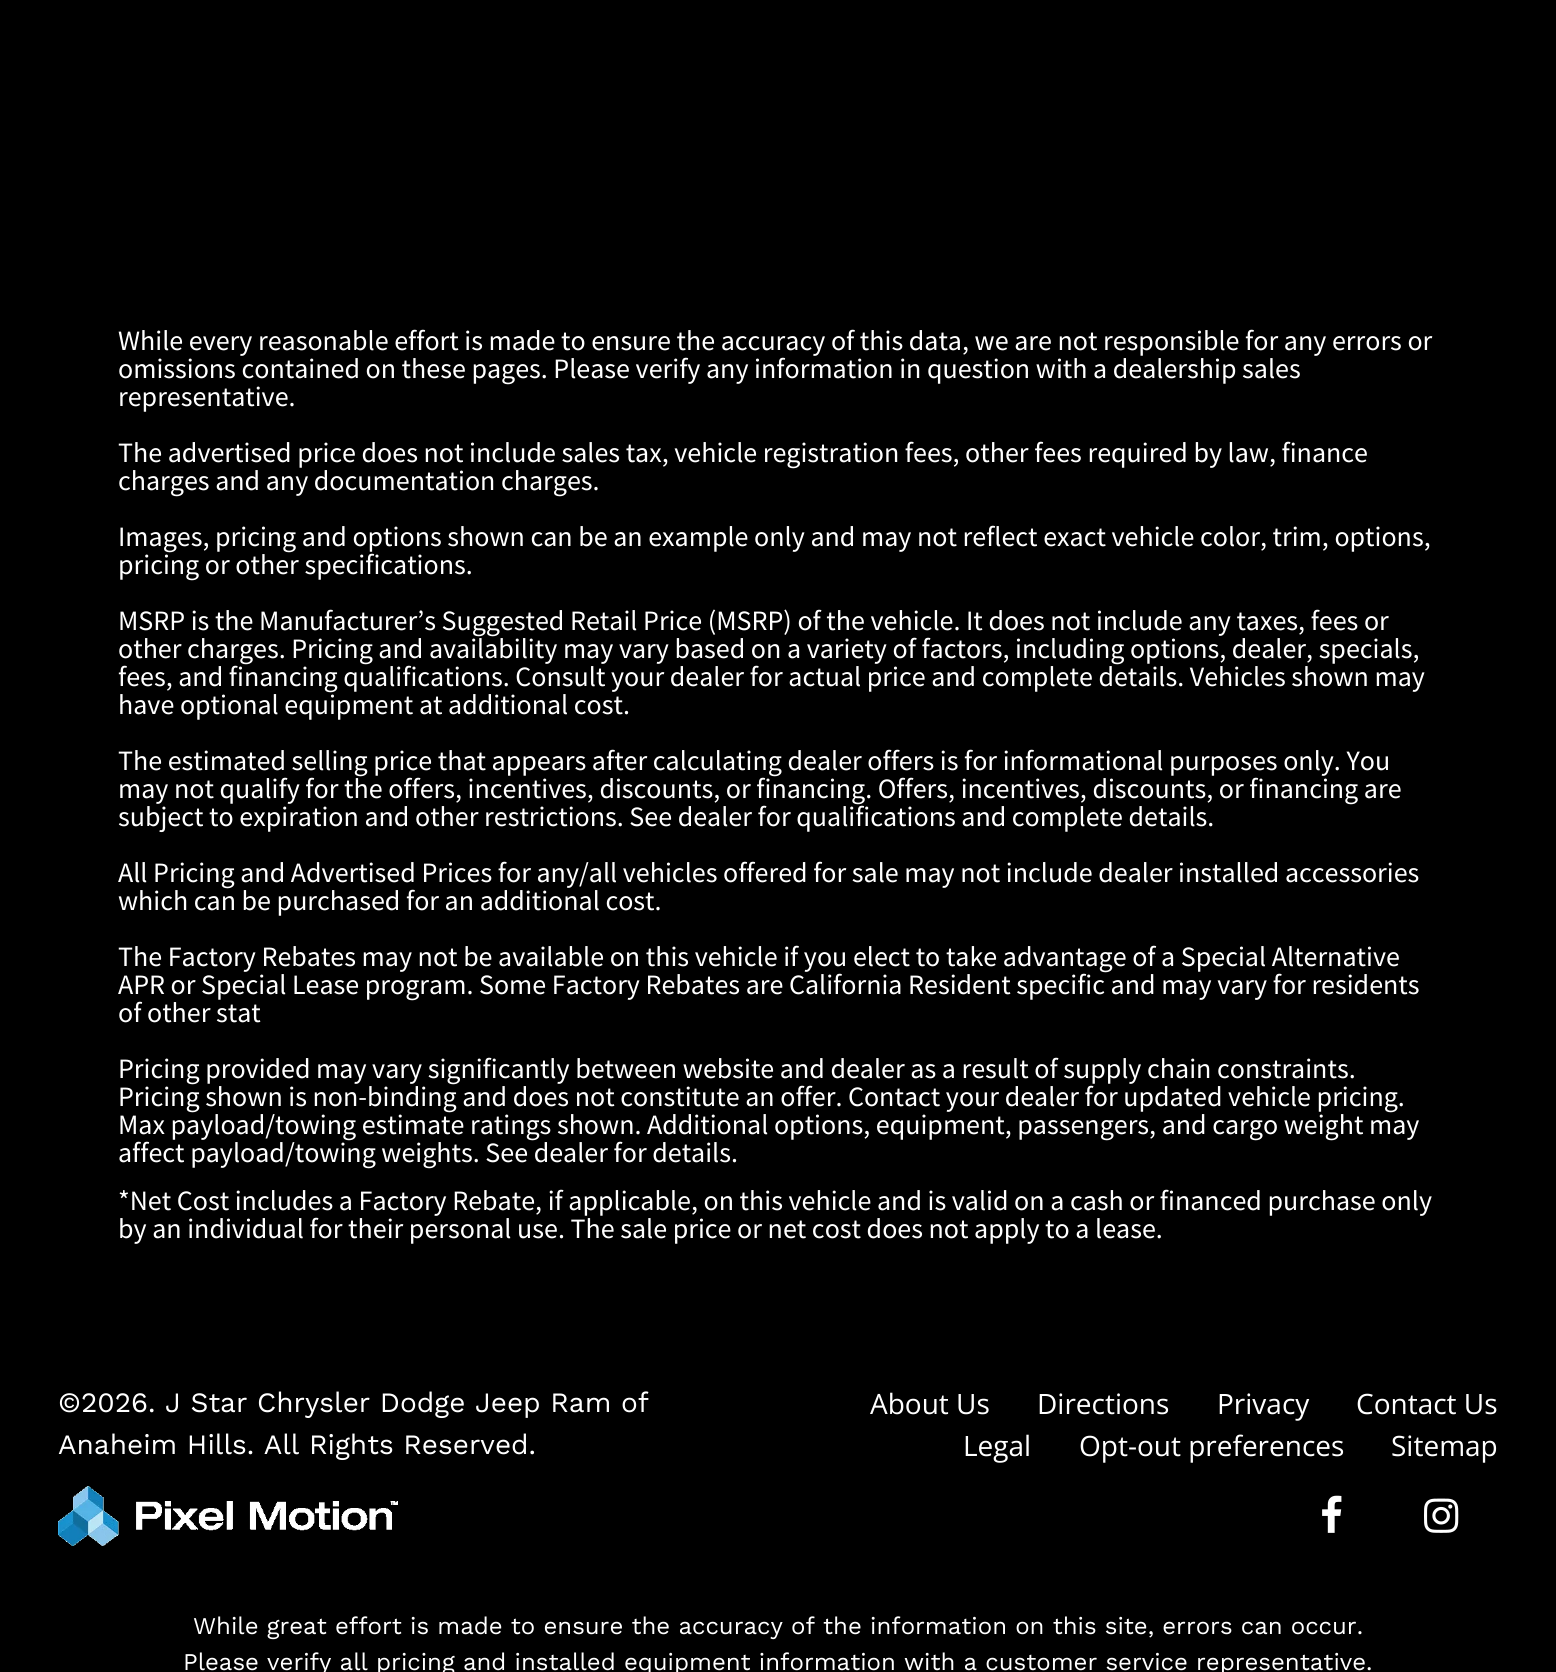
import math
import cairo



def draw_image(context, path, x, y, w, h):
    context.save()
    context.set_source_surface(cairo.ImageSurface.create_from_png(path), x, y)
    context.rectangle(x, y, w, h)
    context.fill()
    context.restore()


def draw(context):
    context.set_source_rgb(0, 0, 0)
    context.paint()
    draw_image(context, "images/1.png", 58, 1486, 340, 60)
    draw_image(context, "images/2.png", 1322, 1495, 20, 38)
    draw_image(context, "images/3.png", 1424, 1498, 35, 35)
    context.select_font_face("Source Sans Pro")
    context.set_font_size(28)
    context.set_source_rgb(1, 1, 1)
    context.move_to(118, 350)
    context.show_text("While every reasonable effort is made to ensure the accuracy of this data, we are not responsible for any errors or")
    context.move_to(118, 378)
    context.show_text("omissions contained on these pages. Please verify any information in question with a dealership sales")
    context.move_to(118, 406)
    context.show_text("representative.")
    context.move_to(118, 462)
    context.show_text("The advertised price does not include sales tax, vehicle registration fees, other fees required by law, finance")
    context.move_to(118, 490)
    context.show_text("charges and any documentation charges.")
    context.move_to(118, 546)
    context.show_text("Images, pricing and options shown can be an example only and may not reflect exact vehicle color, trim, options,")
    context.move_to(118, 574)
    context.show_text("pricing or other specifications.")
    context.move_to(118, 630)
    context.show_text("MSRP is the Manufacturer’s Suggested Retail Price (MSRP) of the vehicle. It does not include any taxes, fees or")
    context.move_to(118, 658)
    context.show_text("other charges. Pricing and availability may vary based on a variety of factors, including options, dealer, specials,")
    context.move_to(118, 686)
    context.show_text("fees, and financing qualifications. Consult your dealer for actual price and complete details. Vehicles shown may")
    context.move_to(118, 714)
    context.show_text("have optional equipment at additional cost.")
    context.move_to(118, 770)
    context.show_text("The estimated selling price that appears after calculating dealer offers is for informational purposes only. You")
    context.move_to(118, 798)
    context.show_text("may not qualify for the offers, incentives, discounts, or financing. Offers, incentives, discounts, or financing are")
    context.move_to(118, 826)
    context.show_text("subject to expiration and other restrictions. See dealer for qualifications and complete details.")
    context.move_to(118, 882)
    context.show_text("All Pricing and Advertised Prices for any/all vehicles offered for sale may not include dealer installed accessories")
    context.move_to(118, 910)
    context.show_text("which can be purchased for an additional cost.")
    context.move_to(118, 966)
    context.show_text("The Factory Rebates may not be available on this vehicle if you elect to take advantage of a Special Alternative")
    context.move_to(118, 994)
    context.show_text("APR or Special Lease program. Some Factory Rebates are California Resident specific and may vary for residents")
    context.move_to(118, 1022)
    context.show_text("of other stat")
    context.move_to(118, 1078)
    context.show_text("Pricing provided may vary significantly between website and dealer as a result of supply chain constraints.")
    context.move_to(118, 1106)
    context.show_text("Pricing shown is non-binding and does not constitute an offer. Contact your dealer for updated vehicle pricing.")
    context.move_to(118, 1134)
    context.show_text("Max payload/towing estimate ratings shown. Additional options, equipment, passengers, and cargo weight may")
    context.move_to(118, 1162)
    context.show_text("affect payload/towing weights. See dealer for details.")
    context.move_to(118, 1210)
    context.show_text("*Net Cost includes a Factory Rebate, if applicable, on this vehicle and is valid on a cash or financed purchase only")
    context.move_to(118, 1238)
    context.show_text("by an individual for their personal use. The sale price or net cost does not apply to a lease.")
    context.select_font_face("Work Sans")
    context.move_to(58, 1412)
    context.show_text("©2026. J Star Chrysler Dodge Jeep Ram of")
    context.move_to(58, 1454)
    context.show_text("Anaheim Hills. All Rights Reserved.")
    context.select_font_face("Open Sans")
    context.move_to(870, 1414)
    context.show_text("About Us")
    context.move_to(1037, 1414)
    context.show_text("Directions")
    context.move_to(1217, 1414)
    context.show_text("Privacy")
    context.move_to(1356, 1414)
    context.show_text("Contact Us")
    context.move_to(963, 1456)
    context.show_text("Legal")
    context.move_to(1079, 1456)
    context.show_text("Opt-out preferences")
    context.move_to(1391, 1456)
    context.show_text("Sitemap")
    context.select_font_face("Work Sans")
    context.set_font_size(24)
    context.move_to(193, 1634)
    context.show_text("While great effort is made to ensure the accuracy of the information on this site, errors can occur.")
    context.move_to(183, 1670)
    context.show_text("Please verify all pricing and installed equipment information with a customer service representative.")


surface = cairo.ImageSurface(cairo.Format.RGB24, 1556, 1672)
context = cairo.Context(surface)
options = cairo.FontOptions()
options.set_hint_metrics(cairo.HintMetrics.OFF)
options.set_hint_style(cairo.HintStyle.NONE)
context.set_font_options(options)
context.set_miter_limit(4)
draw(context)
surface.write_to_png("out.png")
